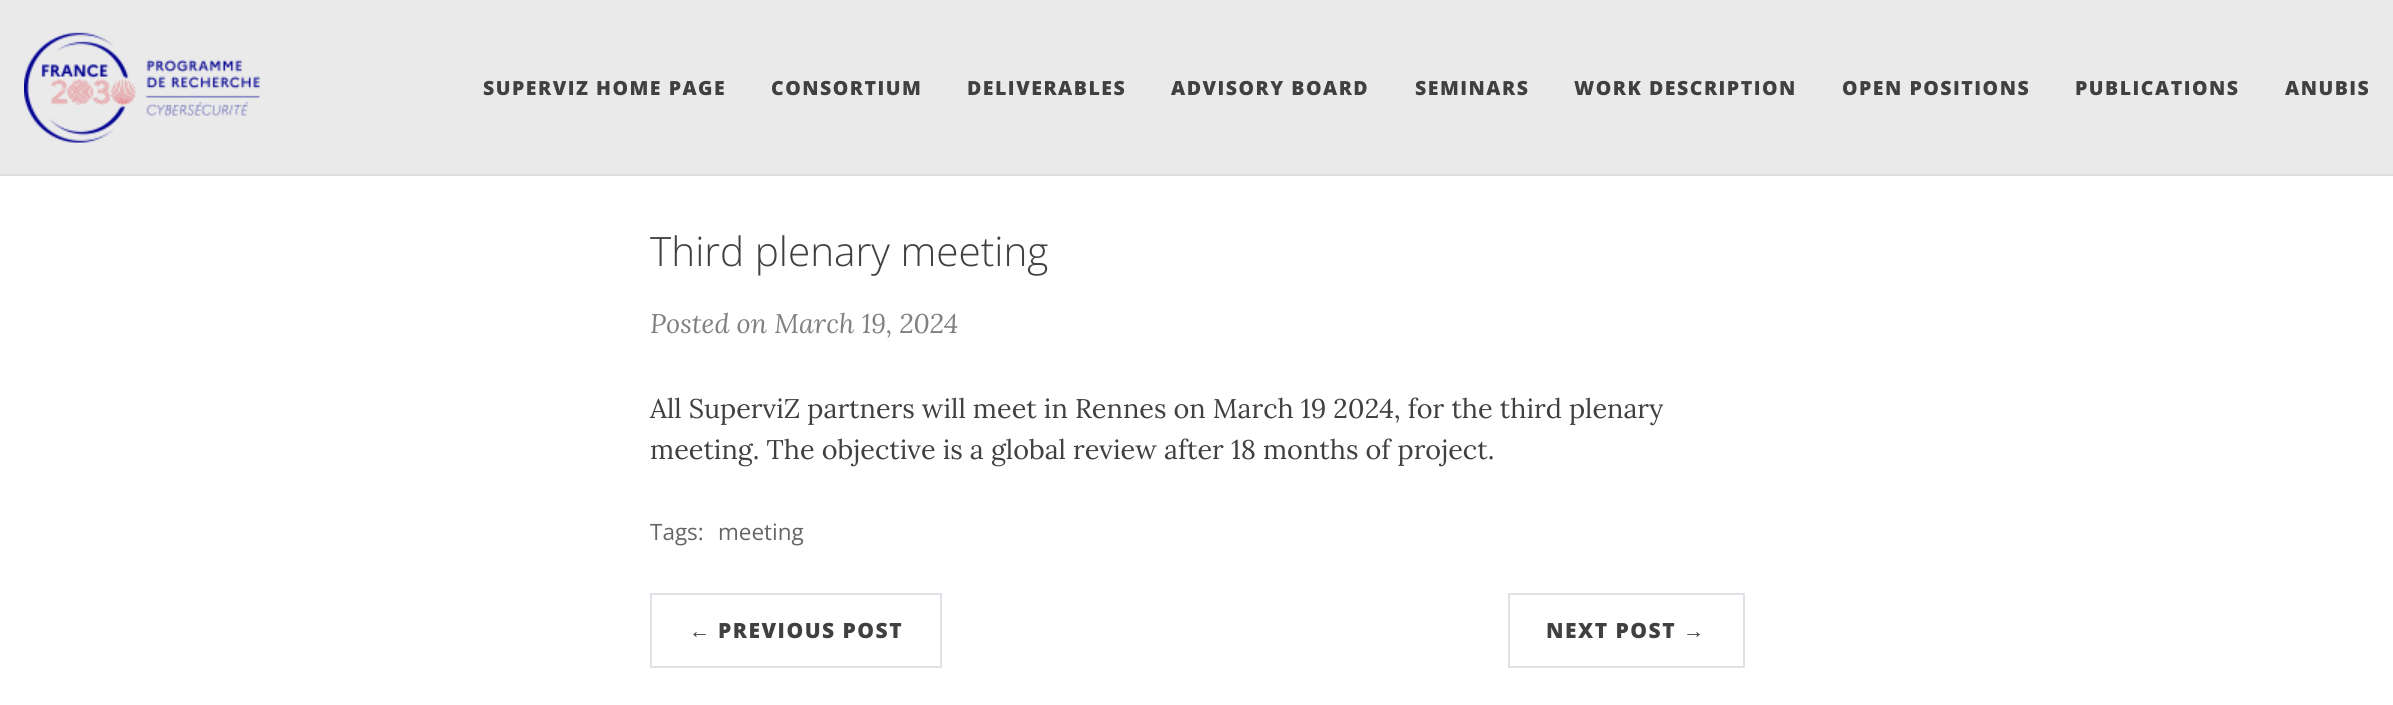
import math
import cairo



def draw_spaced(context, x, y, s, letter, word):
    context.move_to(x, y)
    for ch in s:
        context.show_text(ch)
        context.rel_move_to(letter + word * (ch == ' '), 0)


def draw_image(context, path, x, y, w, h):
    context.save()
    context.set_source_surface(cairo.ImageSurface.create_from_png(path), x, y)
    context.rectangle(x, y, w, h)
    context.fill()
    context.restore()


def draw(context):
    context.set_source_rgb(1, 1, 1)
    context.paint()
    context.set_source_rgb(234 / 255, 234 / 255, 234 / 255)
    context.rectangle(0, 0, 2393, 174)
    context.fill()
    context.set_source_rgb(221 / 255, 221 / 255, 221 / 255)
    context.rectangle(0, 174, 2393, 2)
    context.fill()
    draw_image(context, "images/1.png", 24, 32, 236, 111)
    context.rectangle(651, 594, 290, 73)
    context.set_source_rgb(222 / 255, 226 / 255, 230 / 255)
    context.stroke()
    context.rectangle(1509, 594, 235, 73)
    context.stroke()
    context.select_font_face("Open Sans ExtraBold")
    context.set_font_size(19.5)
    context.set_source_rgb(64 / 255, 64 / 255, 64 / 255)
    draw_spaced(context, 483, 95, "SUPERVIZ HOME PAGE", 1.5, 0)
    draw_spaced(context, 771, 95, "CONSORTIUM", 1.5, 0)
    draw_spaced(context, 967, 95, "DELIVERABLES", 1.5, 0)
    draw_spaced(context, 1171, 95, "ADVISORY BOARD", 1.5, 0)
    draw_spaced(context, 1415, 95, "SEMINARS", 1.5, 0)
    draw_spaced(context, 1574, 95, "WORK DESCRIPTION", 1.5, 0)
    draw_spaced(context, 1842, 95, "OPEN POSITIONS", 1.5, 0)
    draw_spaced(context, 2075, 95, "PUBLICATIONS", 1.5, 0)
    draw_spaced(context, 2285, 95, "ANUBIS", 1.5, 0)
    context.select_font_face("Open Sans Light")
    context.set_font_size(40.5)
    context.move_to(650, 266)
    context.show_text("Third plenary meeting")
    context.select_font_face("Lora", cairo.FontSlant.ITALIC)
    context.set_font_size(27)
    context.set_source_rgb(128 / 255, 128 / 255, 128 / 255)
    context.move_to(650, 333)
    context.show_text("Posted on March 19, 2024")
    context.select_font_face("Lora")
    context.set_source_rgb(64 / 255, 64 / 255, 64 / 255)
    context.move_to(650, 418)
    context.show_text("All SuperviZ partners will meet in Rennes on March 19 2024, for the third plenary")
    context.move_to(650, 459)
    context.show_text("meeting. The objective is a global review after 18 months of project.")
    context.select_font_face("Open Sans")
    context.set_font_size(22.5)
    context.set_source_rgb(102 / 255, 102 / 255, 102 / 255)
    context.move_to(650, 540)
    context.show_text("Tags:")
    context.move_to(718, 540)
    context.show_text("meeting")
    context.select_font_face("Liberation Sans", cairo.FontSlant.NORMAL, cairo.FontWeight.BOLD)
    context.set_font_size(21)
    context.set_source_rgb(64 / 255, 64 / 255, 64 / 255)
    draw_spaced(context, 689, 638, "←", 1.5, 0)
    context.select_font_face("Open Sans ExtraBold")
    draw_spaced(context, 718, 638, "PREVIOUS POST", 1.5, 0)
    draw_spaced(context, 1546, 638, "NEXT POST", 1.5, 0)
    context.select_font_face("Liberation Sans", cairo.FontSlant.NORMAL, cairo.FontWeight.BOLD)
    draw_spaced(context, 1683, 638, "→", 1.5, 0)


surface = cairo.ImageSurface(cairo.Format.RGB24, 2393, 705)
context = cairo.Context(surface)
options = cairo.FontOptions()
options.set_hint_metrics(cairo.HintMetrics.OFF)
options.set_hint_style(cairo.HintStyle.NONE)
context.set_font_options(options)
context.set_miter_limit(4)
draw(context)
surface.write_to_png("out.png")
